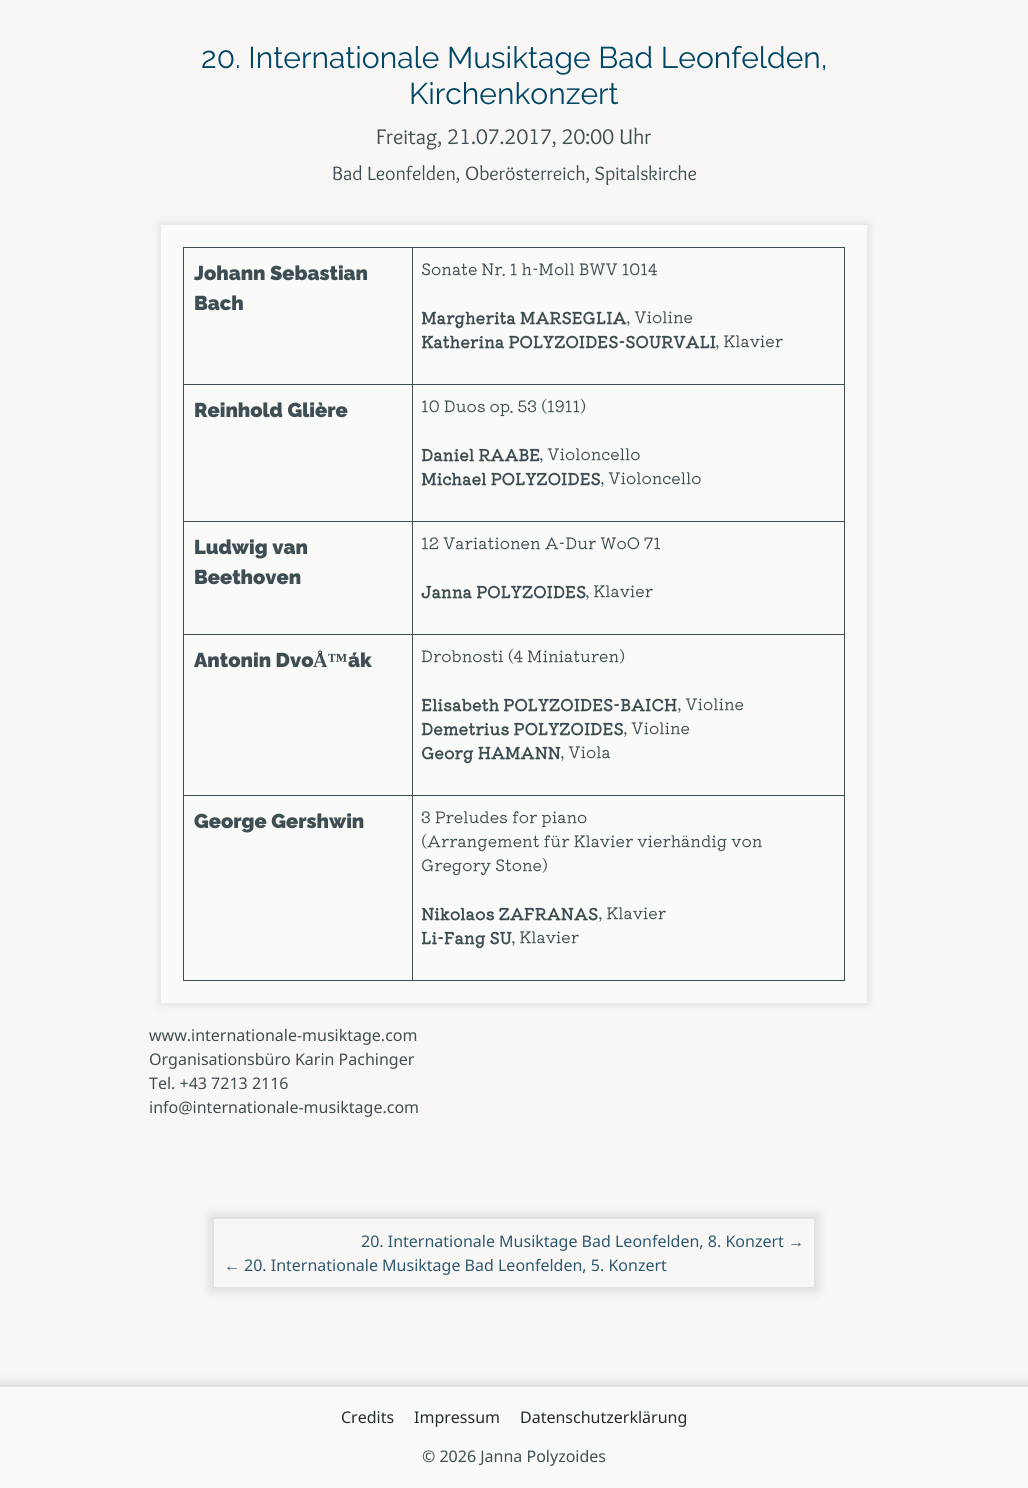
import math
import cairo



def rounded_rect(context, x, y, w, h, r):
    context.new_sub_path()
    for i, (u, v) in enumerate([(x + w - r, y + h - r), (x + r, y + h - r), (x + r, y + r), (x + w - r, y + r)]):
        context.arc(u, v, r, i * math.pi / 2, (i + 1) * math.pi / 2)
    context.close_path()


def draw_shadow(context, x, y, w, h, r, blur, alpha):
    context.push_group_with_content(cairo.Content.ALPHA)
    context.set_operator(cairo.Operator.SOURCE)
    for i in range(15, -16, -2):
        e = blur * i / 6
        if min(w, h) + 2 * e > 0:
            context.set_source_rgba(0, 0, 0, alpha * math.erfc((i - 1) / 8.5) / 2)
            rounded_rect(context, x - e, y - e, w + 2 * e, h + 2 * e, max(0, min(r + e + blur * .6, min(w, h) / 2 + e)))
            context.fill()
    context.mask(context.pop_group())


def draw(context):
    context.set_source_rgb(248 / 255, 247 / 255, 246 / 255)
    context.paint()
    context.set_source_rgb(0, 0, 0)
    draw_shadow(context, 160, 224, 708, 780, 0, 5, 0.1)
    context.set_source_rgb(250 / 255, 250 / 255, 249 / 255)
    context.rectangle(161, 225, 706, 778)
    context.fill()
    context.set_source_rgb(62 / 255, 78 / 255, 83 / 255)
    context.rectangle(412, 247, 433, 1)
    context.fill()
    context.rectangle(412, 384, 433, 1)
    context.fill()
    context.rectangle(412, 521, 433, 1)
    context.fill()
    context.rectangle(412, 634, 433, 1)
    context.fill()
    context.rectangle(412, 795, 433, 1)
    context.fill()
    context.rectangle(844, 795, 1, 186)
    context.fill()
    context.rectangle(412, 980, 433, 1)
    context.fill()
    context.rectangle(412, 795, 1, 186)
    context.fill()
    context.rectangle(183, 795, 230, 1)
    context.fill()
    context.rectangle(412, 634, 1, 162)
    context.fill()
    context.rectangle(183, 634, 230, 1)
    context.fill()
    context.rectangle(412, 521, 1, 114)
    context.fill()
    context.rectangle(183, 521, 230, 1)
    context.fill()
    context.rectangle(412, 384, 1, 138)
    context.fill()
    context.rectangle(183, 384, 230, 1)
    context.fill()
    context.rectangle(412, 247, 1, 138)
    context.fill()
    context.rectangle(183, 247, 230, 1)
    context.fill()
    context.rectangle(183, 980, 230, 1)
    context.fill()
    context.rectangle(183, 795, 1, 186)
    context.fill()
    context.rectangle(183, 634, 1, 162)
    context.fill()
    context.rectangle(183, 521, 1, 114)
    context.fill()
    context.rectangle(183, 384, 1, 138)
    context.fill()
    context.rectangle(183, 247, 1, 138)
    context.fill()
    context.rectangle(844, 634, 1, 162)
    context.fill()
    context.rectangle(844, 521, 1, 114)
    context.fill()
    context.rectangle(844, 384, 1, 138)
    context.fill()
    context.rectangle(844, 247, 1, 138)
    context.fill()
    context.save()
    context.set_fill_rule(cairo.FillRule.EVEN_ODD)
    context.new_path()
    context.move_to(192, 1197)
    context.line_to(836, 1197)
    context.line_to(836, 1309)
    context.line_to(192, 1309)
    context.close_path()
    context.move_to(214, 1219)
    context.line_to(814, 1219)
    context.line_to(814, 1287)
    context.line_to(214, 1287)
    context.close_path()
    context.clip()
    context.set_source_rgb(0, 0, 0)
    draw_shadow(context, 211, 1216, 606, 74, 0, 6, 0.14)
    context.restore()
    context.set_source_rgb(0, 0, 0)
    draw_shadow(context, -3, 1384, 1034, 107, 0, 6, 0.14)
    context.set_source_rgb(250 / 255, 250 / 255, 249 / 255)
    context.rectangle(0, 1387, 1028, 101)
    context.fill()
    context.select_font_face("Raleway")
    context.set_font_size(30)
    context.set_source_rgb(0, 71 / 255, 102 / 255)
    context.move_to(201, 68)
    context.show_text("20. Internationale Musiktage Bad Leonfelden,")
    context.move_to(409, 104)
    context.show_text("Kirchenkonzert")
    context.select_font_face("Overlock")
    context.set_font_size(22)
    context.set_source_rgb(62 / 255, 78 / 255, 83 / 255)
    context.move_to(376, 144)
    context.show_text("Freitag, 21.07.2017, 20:00 Uhr")
    context.set_font_size(20)
    context.move_to(332, 180)
    context.show_text("Bad Leonfelden, Oberösterreich, Spitalskirche")
    context.select_font_face("Raleway Black")
    context.move_to(194, 280)
    context.show_text("Johann Sebastian")
    context.move_to(194, 310)
    context.show_text("Bach")
    context.select_font_face("Kiwi Maru")
    context.set_font_size(16)
    context.move_to(421, 275)
    context.show_text("Sonate Nr. 1 h-Moll BWV 1014")
    context.select_font_face("Kiwi Maru", cairo.FontSlant.NORMAL, cairo.FontWeight.BOLD)
    context.move_to(421, 324)
    context.show_text("Margherita MARSEGLIA")
    context.select_font_face("Kiwi Maru")
    context.move_to(627, 323)
    context.show_text(", Violine")
    context.select_font_face("Kiwi Maru", cairo.FontSlant.NORMAL, cairo.FontWeight.BOLD)
    context.move_to(421, 348)
    context.show_text("Katherina POLYZOIDES-SOURVALI")
    context.select_font_face("Kiwi Maru")
    context.move_to(716, 347)
    context.show_text(", Klavier")
    context.select_font_face("Raleway Black")
    context.set_font_size(20)
    context.move_to(194, 417)
    context.show_text("Reinhold Glière")
    context.select_font_face("Kiwi Maru")
    context.set_font_size(16)
    context.move_to(421, 412)
    context.show_text("10 Duos op. 53 (1911)")
    context.select_font_face("Kiwi Maru", cairo.FontSlant.NORMAL, cairo.FontWeight.BOLD)
    context.move_to(421, 461)
    context.show_text("Daniel RAABE")
    context.select_font_face("Kiwi Maru")
    context.move_to(540, 460)
    context.show_text(", Violoncello")
    context.select_font_face("Kiwi Maru", cairo.FontSlant.NORMAL, cairo.FontWeight.BOLD)
    context.move_to(421, 485)
    context.show_text("Michael POLYZOIDES")
    context.select_font_face("Kiwi Maru")
    context.move_to(601, 484)
    context.show_text(", Violoncello")
    context.select_font_face("Raleway Black")
    context.set_font_size(20)
    context.move_to(194, 554)
    context.show_text("Ludwig van")
    context.move_to(194, 584)
    context.show_text("Beethoven")
    context.select_font_face("Kiwi Maru")
    context.set_font_size(16)
    context.move_to(421, 549)
    context.show_text("12 Variationen A-Dur WoO 71")
    context.select_font_face("Kiwi Maru", cairo.FontSlant.NORMAL, cairo.FontWeight.BOLD)
    context.move_to(421, 598)
    context.show_text("Janna POLYZOIDES")
    context.select_font_face("Kiwi Maru")
    context.move_to(586, 597)
    context.show_text(", Klavier")
    context.select_font_face("Raleway Black")
    context.set_font_size(20)
    context.move_to(194, 667)
    context.show_text("Antonin Dvo")
    context.select_font_face("Liberation Serif", cairo.FontSlant.NORMAL, cairo.FontWeight.BOLD)
    context.move_to(313, 667)
    context.show_text("Å™")
    context.select_font_face("Raleway Black")
    context.move_to(348, 667)
    context.show_text("ák")
    context.select_font_face("Kiwi Maru")
    context.set_font_size(16)
    context.move_to(421, 662)
    context.show_text("Drobnosti (4 Miniaturen)")
    context.select_font_face("Kiwi Maru", cairo.FontSlant.NORMAL, cairo.FontWeight.BOLD)
    context.move_to(421, 711)
    context.show_text("Elisabeth POLYZOIDES-BAICH")
    context.select_font_face("Kiwi Maru")
    context.move_to(678, 710)
    context.show_text(", Violine")
    context.select_font_face("Kiwi Maru", cairo.FontSlant.NORMAL, cairo.FontWeight.BOLD)
    context.move_to(421, 735)
    context.show_text("Demetrius POLYZOIDES")
    context.select_font_face("Kiwi Maru")
    context.move_to(624, 734)
    context.show_text(", Violine")
    context.select_font_face("Kiwi Maru", cairo.FontSlant.NORMAL, cairo.FontWeight.BOLD)
    context.move_to(421, 759)
    context.show_text("Georg HAMANN")
    context.select_font_face("Kiwi Maru")
    context.move_to(561, 758)
    context.show_text(", Viola")
    context.select_font_face("Raleway Black")
    context.set_font_size(20)
    context.move_to(194, 828)
    context.show_text("George Gershwin")
    context.select_font_face("Kiwi Maru")
    context.set_font_size(16)
    context.move_to(421, 823)
    context.show_text("3 Preludes for piano")
    context.move_to(421, 847)
    context.show_text("(Arrangement für Klavier vierhändig von")
    context.move_to(421, 871)
    context.show_text("Gregory Stone)")
    context.select_font_face("Kiwi Maru", cairo.FontSlant.NORMAL, cairo.FontWeight.BOLD)
    context.move_to(421, 920)
    context.show_text("Nikolaos ZAFRANAS")
    context.select_font_face("Kiwi Maru")
    context.move_to(599, 919)
    context.show_text(", Klavier")
    context.select_font_face("Kiwi Maru", cairo.FontSlant.NORMAL, cairo.FontWeight.BOLD)
    context.move_to(421, 944)
    context.show_text("Li-Fang SU")
    context.select_font_face("Kiwi Maru")
    context.move_to(512, 943)
    context.show_text(", Klavier")
    context.select_font_face("Noto Sans")
    context.move_to(149, 1041)
    context.show_text("www.internationale-musiktage.com")
    context.move_to(149, 1065)
    context.show_text("Organisationsbüro Karin Pachinger")
    context.move_to(149, 1089)
    context.show_text("Tel. +43 7213 2116")
    context.move_to(149, 1113)
    context.show_text("info@internationale-musiktage.com")
    context.set_source_rgb(47 / 255, 89 / 255, 111 / 255)
    context.move_to(361, 1247)
    context.show_text("20. Internationale Musiktage Bad Leonfelden, 8. Konzert")
    context.select_font_face("Liberation Sans")
    context.move_to(788, 1247)
    context.show_text("→")
    context.move_to(224, 1271)
    context.show_text("←")
    context.select_font_face("Noto Sans")
    context.move_to(244, 1271)
    context.show_text("20. Internationale Musiktage Bad Leonfelden, 5. Konzert")
    context.set_source_rgb(36 / 255, 45 / 255, 48 / 255)
    context.move_to(341, 1423)
    context.show_text("Credits")
    context.move_to(414, 1423)
    context.show_text("Impressum")
    context.move_to(520, 1423)
    context.show_text("Datenschutzerklärung")
    context.set_source_rgb(62 / 255, 78 / 255, 83 / 255)
    context.move_to(422, 1462)
    context.show_text("© 2026 Janna Polyzoides")


surface = cairo.ImageSurface(cairo.Format.RGB24, 1028, 1488)
context = cairo.Context(surface)
options = cairo.FontOptions()
options.set_hint_metrics(cairo.HintMetrics.OFF)
options.set_hint_style(cairo.HintStyle.NONE)
context.set_font_options(options)
context.set_miter_limit(4)
draw(context)
surface.write_to_png("out.png")
